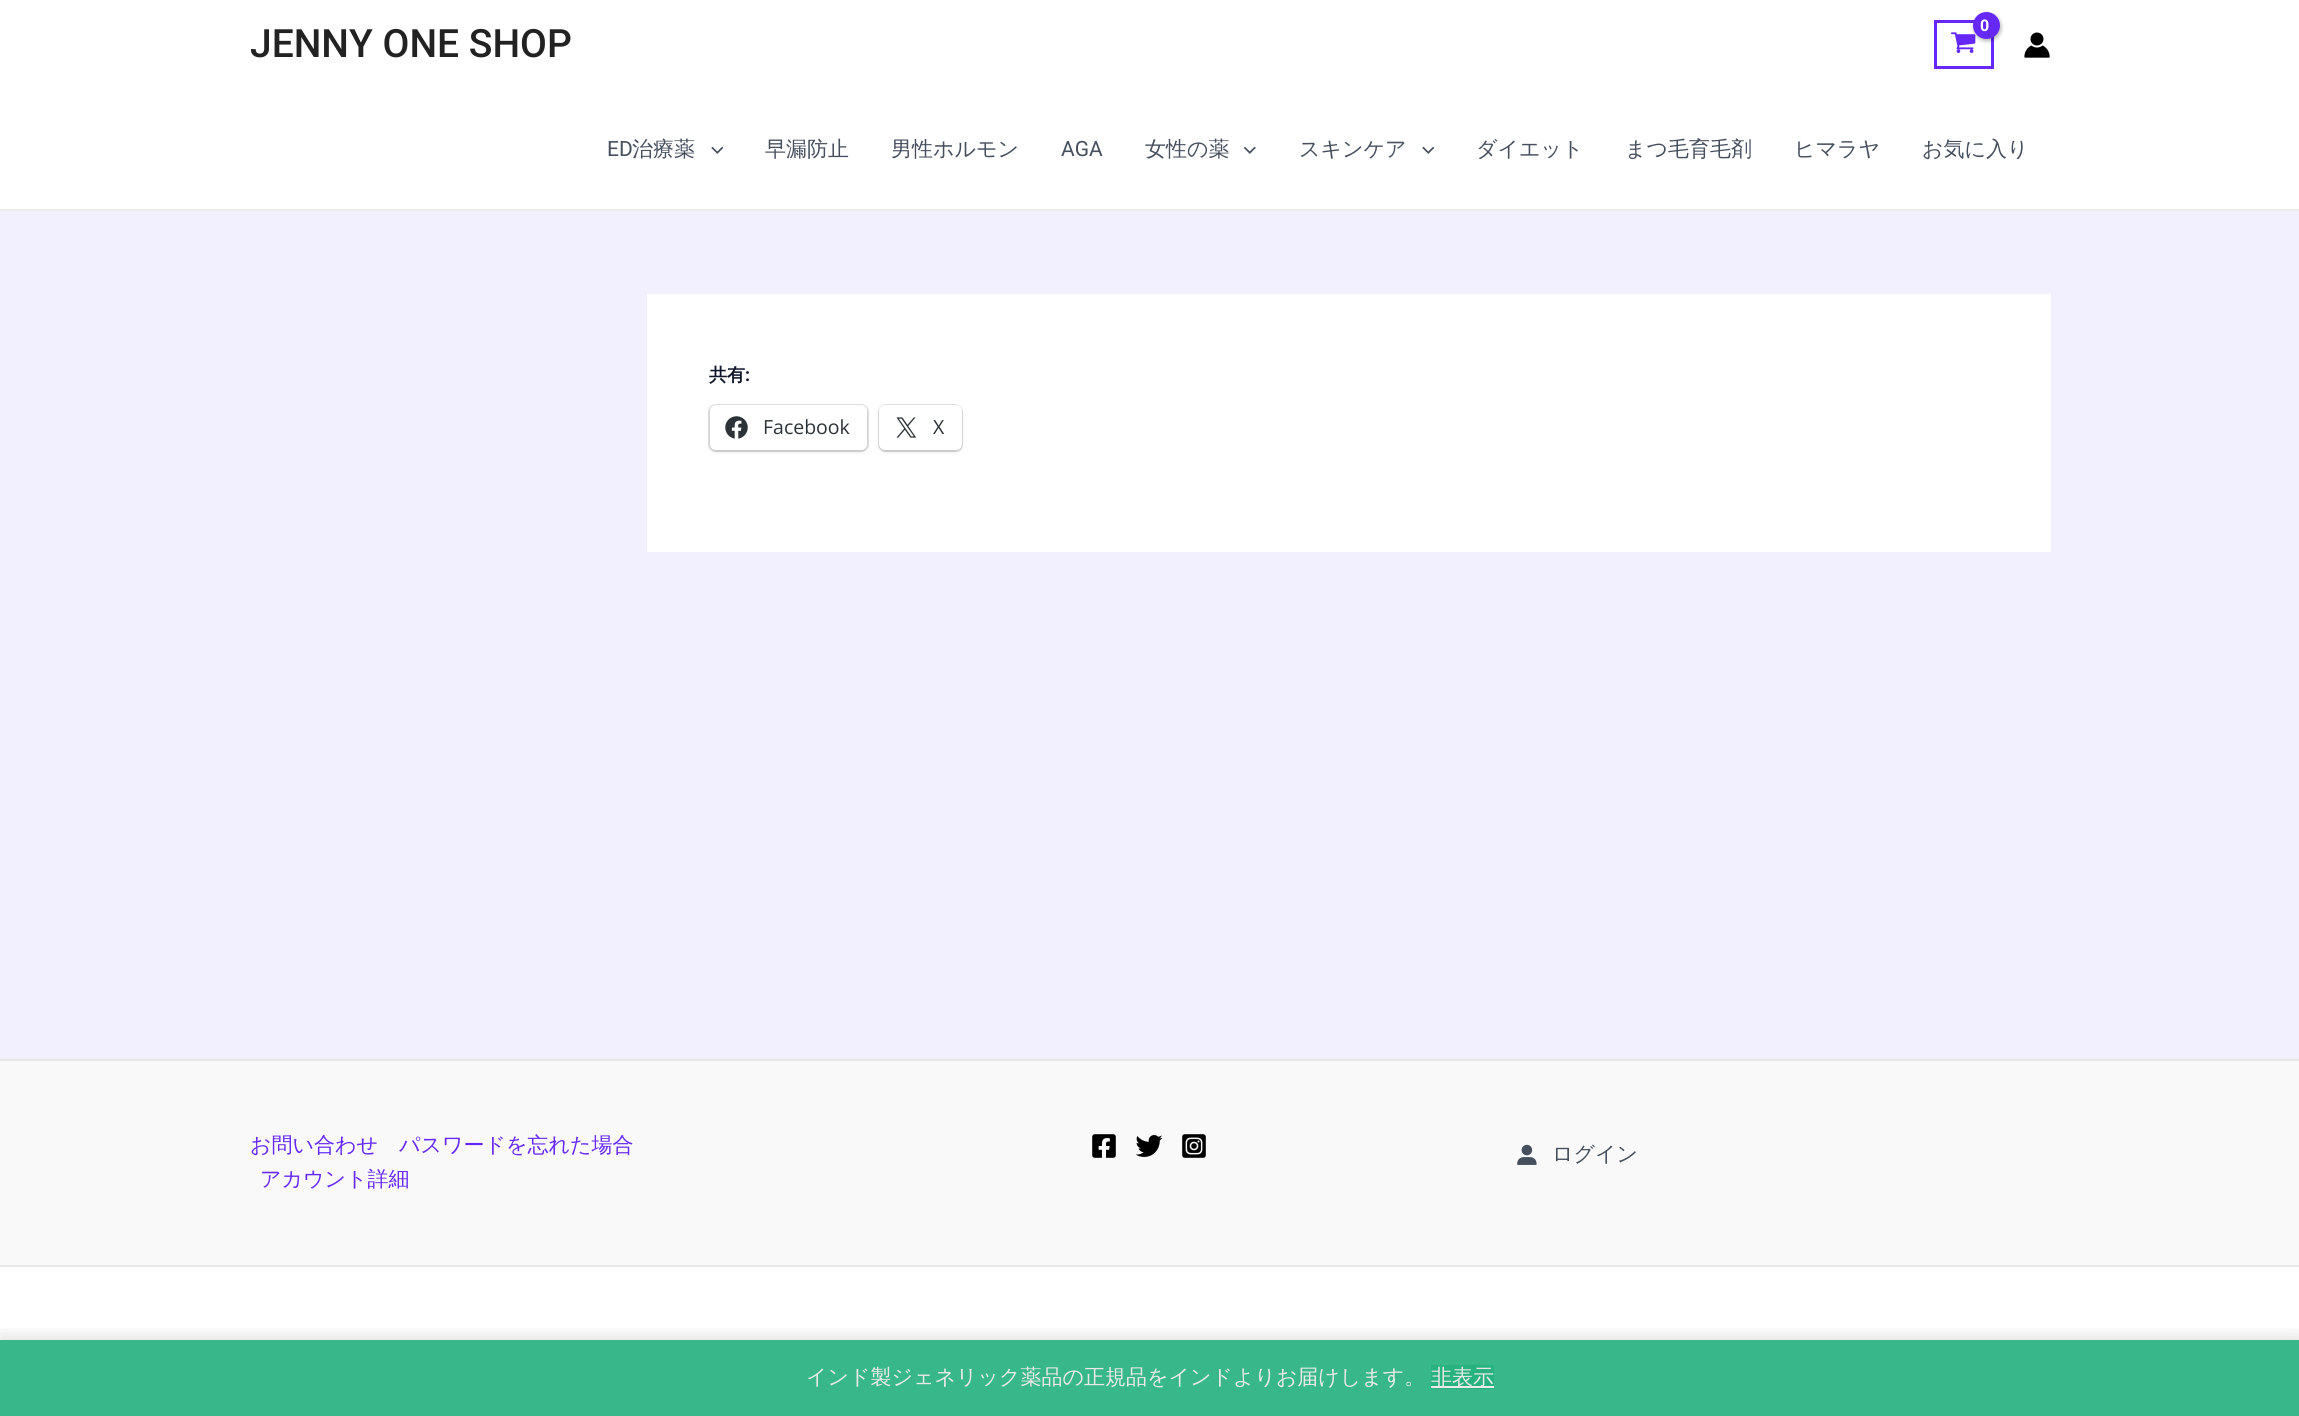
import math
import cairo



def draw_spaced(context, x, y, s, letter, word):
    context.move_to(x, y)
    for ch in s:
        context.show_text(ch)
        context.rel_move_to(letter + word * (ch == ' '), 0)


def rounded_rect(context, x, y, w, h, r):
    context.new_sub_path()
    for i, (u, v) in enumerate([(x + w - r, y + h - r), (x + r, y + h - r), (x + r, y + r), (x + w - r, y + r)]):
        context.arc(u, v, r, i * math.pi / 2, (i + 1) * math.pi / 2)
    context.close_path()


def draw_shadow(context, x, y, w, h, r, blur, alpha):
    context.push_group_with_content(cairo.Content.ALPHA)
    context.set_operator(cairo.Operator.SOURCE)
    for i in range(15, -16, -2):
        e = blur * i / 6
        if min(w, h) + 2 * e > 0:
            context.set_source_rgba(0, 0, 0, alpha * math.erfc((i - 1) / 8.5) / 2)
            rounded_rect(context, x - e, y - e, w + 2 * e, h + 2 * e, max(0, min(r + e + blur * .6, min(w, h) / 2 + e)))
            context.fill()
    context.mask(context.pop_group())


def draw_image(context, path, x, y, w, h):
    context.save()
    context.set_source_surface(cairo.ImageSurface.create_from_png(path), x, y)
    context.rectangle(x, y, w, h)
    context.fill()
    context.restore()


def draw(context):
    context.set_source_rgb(242 / 255, 240 / 255, 254 / 255)
    context.paint()
    context.set_source_rgb(1, 1, 1)
    context.rectangle(0, 0, 2299, 209)
    context.fill()
    context.rectangle(1935.5, 21.5, 57, 46)
    context.set_source_rgb(101 / 255, 40 / 255, 247 / 255)
    context.set_line_width(3)
    context.stroke()
    draw_image(context, "images/1.png", 1951, 32, 25, 21)
    context.set_source_rgb(0, 0, 0)
    draw_shadow(context, 1974, 14, 27, 27, 13.5, 2, 0.3)
    context.set_source_rgb(101 / 255, 40 / 255, 247 / 255)
    context.arc(1986.5, 25.5, 13.5, 0, 2 * math.pi)
    context.fill()
    draw_image(context, "images/2.png", 2024, 32, 26, 26)
    context.set_source_rgb(234 / 255, 234 / 255, 234 / 255)
    context.rectangle(0, 209, 2299, 2)
    context.fill()
    draw_image(context, "images/3.png", 711, 146, 12, 8)
    draw_image(context, "images/4.png", 1244, 146, 12, 8)
    draw_image(context, "images/3.png", 1422, 146, 12, 8)
    context.set_source_rgb(1, 1, 1)
    context.rectangle(647, 294, 1404, 258)
    context.fill()
    rounded_rect(context, 709, 405, 159, 46, 7)
    context.set_source_rgb(224 / 255, 224 / 255, 224 / 255)
    context.set_line_width(2)
    context.stroke()
    context.set_source_rgb(0, 0, 0)
    draw_shadow(context, 710, 407, 157, 45, 6, 1.5, 0.12)
    context.set_source_rgb(1, 1, 1)
    rounded_rect(context, 710, 405, 157, 45, 6)
    context.fill()
    draw_image(context, "images/5.png", 725, 416, 23, 23)
    rounded_rect(context, 879, 405, 83, 46, 7)
    context.set_source_rgb(224 / 255, 224 / 255, 224 / 255)
    context.stroke()
    context.set_source_rgb(0, 0, 0)
    draw_shadow(context, 879, 407, 83, 45, 6, 1.5, 0.12)
    context.set_source_rgb(1, 1, 1)
    rounded_rect(context, 879, 405, 83, 45, 6)
    context.fill()
    draw_image(context, "images/6.png", 896, 417, 21, 21)
    context.set_source_rgb(249 / 255, 249 / 255, 249 / 255)
    context.rectangle(0, 1061, 2299, 204)
    context.fill()
    context.set_source_rgb(230 / 255, 230 / 255, 230 / 255)
    context.rectangle(0, 1059, 2299, 2)
    context.fill()
    draw_image(context, "images/7.png", 1092, 1134, 24, 24)
    draw_image(context, "images/8.png", 1136, 1135, 27, 22)
    draw_image(context, "images/9.png", 1182, 1134, 24, 24)
    draw_image(context, "images/10.png", 1517, 1144, 20, 21)
    context.set_source_rgb(1, 1, 1)
    context.rectangle(0, 1267, 2299, 149)
    context.fill()
    context.set_source_rgb(234 / 255, 234 / 255, 234 / 255)
    context.rectangle(0, 1265, 2299, 2)
    context.fill()
    context.save()
    context.rectangle(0, 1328, 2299, 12)
    context.clip()
    context.set_source_rgb(0, 0, 0)
    draw_shadow(context, 0, 1341, 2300, 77, 0, 10.5, 0.2)
    context.restore()
    context.set_source_rgba(37 / 255, 177 / 255, 126 / 255, 0.91)
    context.rectangle(0, 1340, 2299, 76)
    context.fill()
    context.set_source_rgb(39 / 255, 178 / 255, 127 / 255)
    context.rectangle(1431, 1365, 63, 24)
    context.fill()
    context.set_source_rgb(238 / 255, 233 / 255, 233 / 255)
    context.rectangle(1431, 1386, 63, 2)
    context.fill()
    context.select_font_face("Roboto", cairo.FontSlant.NORMAL, cairo.FontWeight.BOLD)
    context.set_font_size(16)
    context.set_source_rgb(1, 1, 1)
    draw_spaced(context, 1980, 31, "0", -1, 0)
    context.select_font_face("Roboto Medium")
    context.set_font_size(39)
    context.set_source_rgb(34 / 255, 34 / 255, 34 / 255)
    context.move_to(250, 57)
    context.show_text("JENNY ONE SHOP")
    context.select_font_face("Roboto")
    context.set_font_size(21)
    context.set_source_rgb(69 / 255, 79 / 255, 94 / 255)
    context.move_to(607, 156)
    context.show_text("ED")
    context.select_font_face("WenQuanYi Zen Hei Medium")
    context.move_to(632, 156)
    context.show_text("治療薬")
    context.move_to(765, 156)
    context.show_text("早漏防止")
    context.move_to(891, 156)
    context.show_text("男性ホルモン")
    context.select_font_face("Roboto")
    context.move_to(1061, 156)
    context.show_text("AGA")
    context.select_font_face("WenQuanYi Zen Hei Medium")
    context.move_to(1145, 156)
    context.show_text("女性の薬")
    context.move_to(1299, 156)
    context.show_text("スキンケア")
    context.move_to(1476, 156)
    context.show_text("ダイエット")
    context.move_to(1625, 156)
    context.show_text("まつ毛育毛剤")
    context.move_to(1794, 156)
    context.show_text("ヒマラヤ")
    context.move_to(1922, 156)
    context.show_text("お気に入り")
    context.select_font_face("WenQuanYi Zen Hei", cairo.FontSlant.NORMAL, cairo.FontWeight.BOLD)
    context.set_font_size(18)
    context.set_source_rgb(15 / 255, 23 / 255, 42 / 255)
    context.move_to(709, 381)
    context.show_text("共有")
    context.select_font_face("Roboto", cairo.FontSlant.NORMAL, cairo.FontWeight.BOLD)
    context.move_to(745, 381)
    context.show_text(":")
    context.select_font_face("Open Sans")
    context.set_font_size(19.5)
    context.set_source_rgb(44 / 255, 51 / 255, 56 / 255)
    context.move_to(763, 434)
    context.show_text("Facebook")
    context.move_to(933, 434)
    context.show_text("X")
    context.select_font_face("WenQuanYi Zen Hei Medium")
    context.set_font_size(21)
    context.set_source_rgb(101 / 255, 40 / 255, 247 / 255)
    context.move_to(250, 1152)
    context.show_text("お問い合わせ")
    context.move_to(399, 1152)
    context.show_text("パスワードを忘れた場合")
    context.move_to(260, 1186)
    context.show_text("アカウント詳細")
    context.set_source_rgb(69 / 255, 79 / 255, 94 / 255)
    context.move_to(1552, 1161)
    context.show_text("ログイン")
    context.set_source_rgb(238 / 255, 233 / 255, 233 / 255)
    context.move_to(806, 1384)
    context.show_text("インド製ジェネリック薬品の正規品をインドよりお届けします。")
    context.move_to(1431, 1384)
    context.show_text("非表示")


surface = cairo.ImageSurface(cairo.Format.RGB24, 2299, 1416)
context = cairo.Context(surface)
options = cairo.FontOptions()
options.set_hint_metrics(cairo.HintMetrics.OFF)
options.set_hint_style(cairo.HintStyle.NONE)
context.set_font_options(options)
context.set_miter_limit(4)
draw(context)
surface.write_to_png("out.png")
